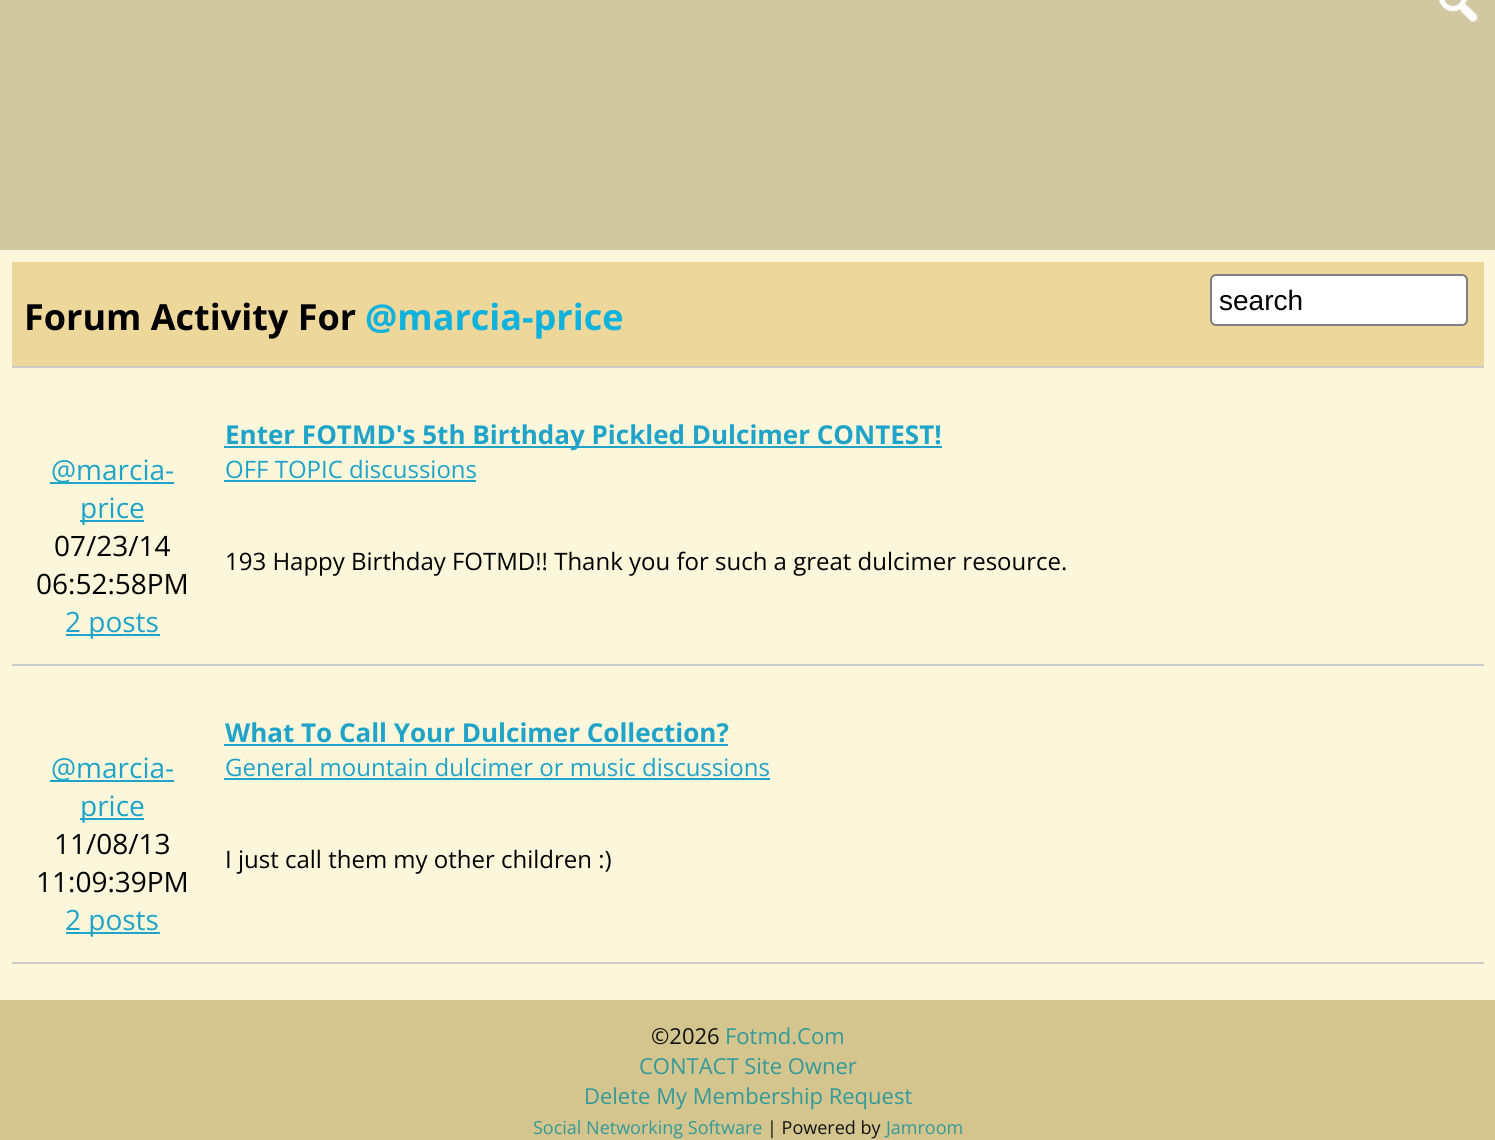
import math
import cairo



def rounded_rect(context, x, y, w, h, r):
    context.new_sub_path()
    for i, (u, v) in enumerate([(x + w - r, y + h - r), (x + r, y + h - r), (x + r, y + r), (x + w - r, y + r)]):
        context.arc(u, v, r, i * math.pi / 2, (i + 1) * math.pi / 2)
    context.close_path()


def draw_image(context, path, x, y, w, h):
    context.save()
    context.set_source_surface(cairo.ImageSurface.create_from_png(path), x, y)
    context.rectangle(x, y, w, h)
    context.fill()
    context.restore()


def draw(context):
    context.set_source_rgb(209 / 255, 199 / 255, 161 / 255)
    context.paint()
    draw_image(context, "images/1.png", 1438, 0, 40, 22)
    context.set_source_rgb(252 / 255, 247 / 255, 219 / 255)
    context.rectangle(0, 250, 1495, 750)
    context.fill()
    context.set_source_rgb(237 / 255, 215 / 255, 154 / 255)
    context.rectangle(12, 262, 1472, 104)
    context.fill()
    context.set_source_rgb(204 / 255, 204 / 255, 204 / 255)
    context.rectangle(12, 366, 1472, 2)
    context.fill()
    context.set_source_rgb(1, 1, 1)
    rounded_rect(context, 1211, 275, 256, 50, 5)
    context.fill_preserve()
    context.set_source_rgb(127 / 255, 127 / 255, 127 / 255)
    context.stroke()
    context.set_source_rgb(204 / 255, 204 / 255, 204 / 255)
    context.rectangle(12, 664, 1472, 2)
    context.fill()
    context.set_source_rgb(31 / 255, 163 / 255, 200 / 255)
    context.rectangle(50, 482, 124, 2)
    context.fill()
    context.rectangle(80, 520, 64, 2)
    context.fill()
    context.rectangle(66, 634, 94, 2)
    context.fill()
    context.rectangle(224, 446, 718, 2)
    context.fill()
    context.rectangle(224, 480, 252, 2)
    context.fill()
    context.set_source_rgb(204 / 255, 204 / 255, 204 / 255)
    context.rectangle(12, 962, 1472, 2)
    context.fill()
    context.set_source_rgb(31 / 255, 163 / 255, 200 / 255)
    context.rectangle(50, 780, 124, 2)
    context.fill()
    context.rectangle(80, 818, 64, 2)
    context.fill()
    context.rectangle(66, 932, 94, 2)
    context.fill()
    context.rectangle(224, 744, 504, 2)
    context.fill()
    context.rectangle(224, 778, 546, 2)
    context.fill()
    context.set_source_rgb(211 / 255, 197 / 255, 141 / 255)
    context.rectangle(0, 1000, 1495, 140)
    context.fill()
    context.select_font_face("Open Sans", cairo.FontSlant.NORMAL, cairo.FontWeight.BOLD)
    context.set_font_size(36)
    context.set_source_rgb(0, 0, 0)
    context.move_to(24, 330)
    context.show_text("Forum Activity For")
    context.set_source_rgb(15 / 255, 177 / 255, 221 / 255)
    context.move_to(365, 330)
    context.show_text("@marcia-price")
    context.select_font_face("Liberation Sans")
    context.set_font_size(28)
    context.set_source_rgb(0, 0, 0)
    context.move_to(1219, 310)
    context.show_text("search")
    context.select_font_face("Open Sans")
    context.set_source_rgb(31 / 255, 163 / 255, 200 / 255)
    context.move_to(51, 480)
    context.show_text("@marcia-")
    context.move_to(80, 518)
    context.show_text("price")
    context.set_source_rgb(0, 0, 0)
    context.move_to(54, 556)
    context.show_text("07/23/14")
    context.move_to(36, 594)
    context.show_text("06:52:58PM")
    context.set_source_rgb(31 / 255, 163 / 255, 200 / 255)
    context.move_to(65, 632)
    context.show_text("2 posts")
    context.select_font_face("Open Sans", cairo.FontSlant.NORMAL, cairo.FontWeight.BOLD)
    context.set_font_size(26)
    context.move_to(225, 444)
    context.show_text("Enter FOTMD's 5th Birthday Pickled Dulcimer CONTEST!")
    context.select_font_face("Open Sans")
    context.set_font_size(24)
    context.move_to(225, 478)
    context.show_text("OFF TOPIC discussions")
    context.set_source_rgb(0, 0, 0)
    context.move_to(225, 570)
    context.show_text("193 Happy Birthday FOTMD!! Thank you for such a great dulcimer resource.")
    context.set_font_size(28)
    context.set_source_rgb(31 / 255, 163 / 255, 200 / 255)
    context.move_to(51, 778)
    context.show_text("@marcia-")
    context.move_to(80, 816)
    context.show_text("price")
    context.set_source_rgb(0, 0, 0)
    context.move_to(54, 854)
    context.show_text("11/08/13")
    context.move_to(36, 892)
    context.show_text("11:09:39PM")
    context.set_source_rgb(31 / 255, 163 / 255, 200 / 255)
    context.move_to(65, 930)
    context.show_text("2 posts")
    context.select_font_face("Open Sans", cairo.FontSlant.NORMAL, cairo.FontWeight.BOLD)
    context.set_font_size(26)
    context.move_to(225, 742)
    context.show_text("What To Call Your Dulcimer Collection?")
    context.select_font_face("Open Sans")
    context.set_font_size(24)
    context.move_to(225, 776)
    context.show_text("General mountain dulcimer or music discussions")
    context.set_source_rgb(0, 0, 0)
    context.move_to(225, 868)
    context.show_text("I just call them my other children :)")
    context.set_font_size(22)
    context.set_source_rgb(17 / 255, 17 / 255, 17 / 255)
    context.move_to(651, 1044)
    context.show_text("©2026")
    context.set_source_rgb(51 / 255, 153 / 255, 153 / 255)
    context.move_to(725, 1044)
    context.show_text("Fotmd.Com")
    context.move_to(639, 1074)
    context.show_text("CONTACT Site Owner")
    context.move_to(584, 1104)
    context.show_text("Delete My Membership Request")
    context.set_font_size(18)
    context.move_to(533, 1134)
    context.show_text("Social Networking Software")
    context.set_source_rgb(17 / 255, 17 / 255, 17 / 255)
    context.move_to(767, 1134)
    context.show_text("| Powered by")
    context.set_source_rgb(51 / 255, 153 / 255, 153 / 255)
    context.move_to(886, 1134)
    context.show_text("Jamroom")


surface = cairo.ImageSurface(cairo.Format.RGB24, 1495, 1140)
context = cairo.Context(surface)
options = cairo.FontOptions()
options.set_hint_metrics(cairo.HintMetrics.OFF)
options.set_hint_style(cairo.HintStyle.NONE)
context.set_font_options(options)
context.set_miter_limit(4)
draw(context)
surface.write_to_png("out.png")
